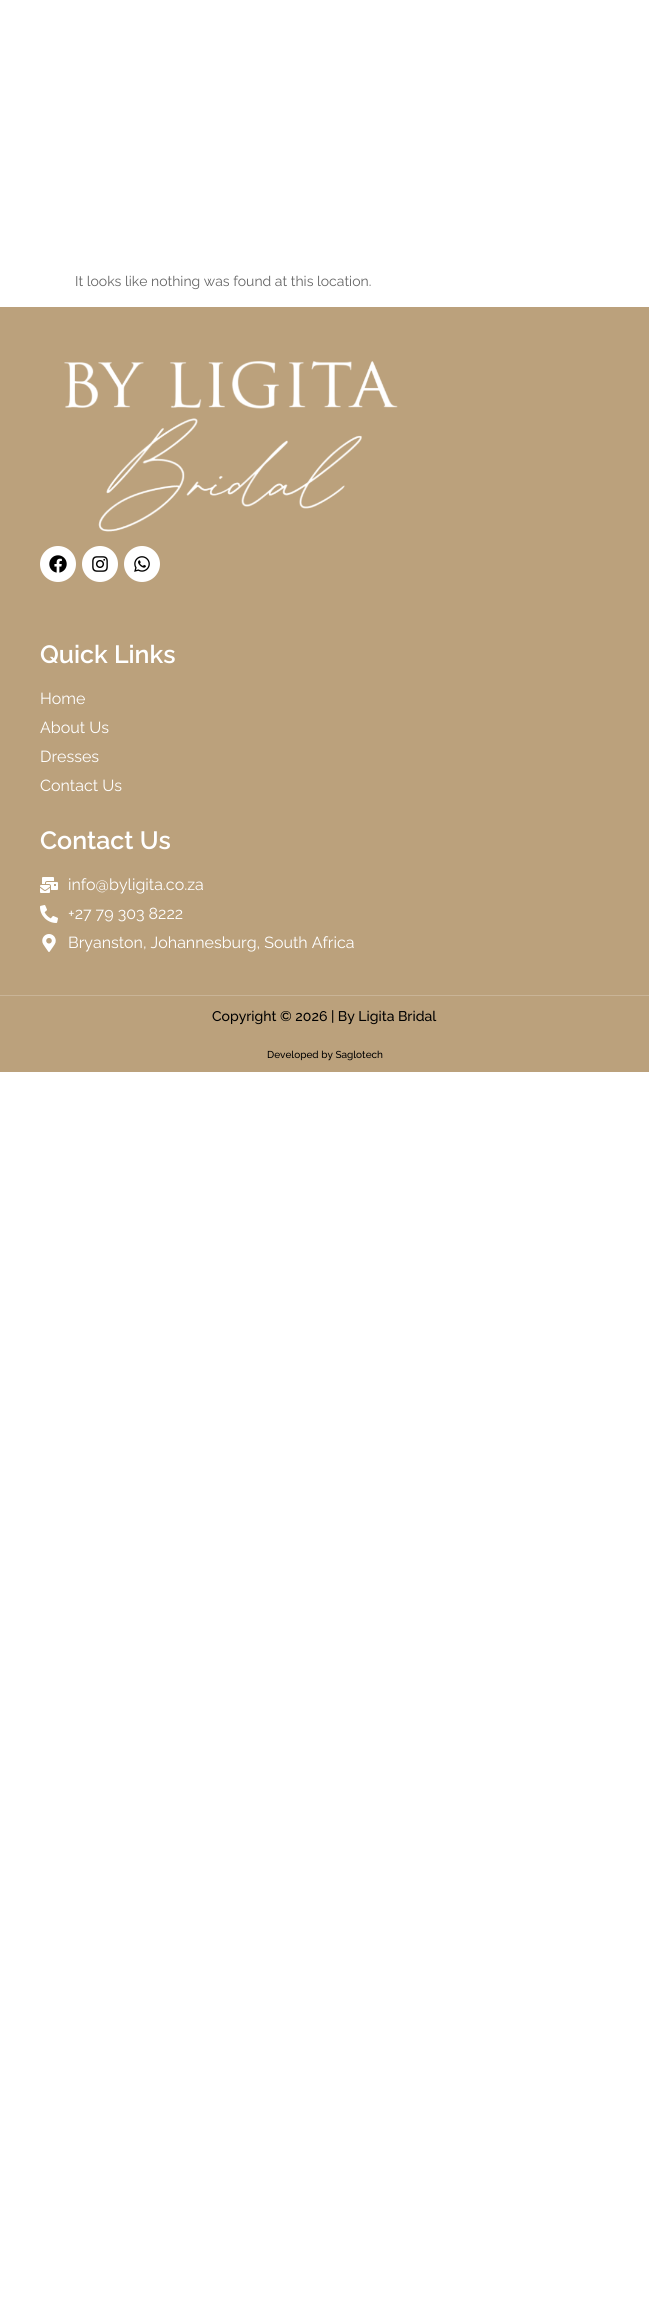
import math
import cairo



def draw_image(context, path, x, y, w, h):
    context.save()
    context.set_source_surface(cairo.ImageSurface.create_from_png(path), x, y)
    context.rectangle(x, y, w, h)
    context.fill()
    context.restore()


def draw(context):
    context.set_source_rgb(1, 1, 1)
    context.paint()
    context.set_source_rgb(187 / 255, 161 / 255, 124 / 255)
    context.rectangle(0, 307, 649, 688)
    context.fill()
    draw_image(context, "images/1.png", 64, 361, 334, 171)
    context.set_source_rgb(1, 1, 1)
    context.arc(58, 564, 18, 0, 2 * math.pi)
    context.fill()
    draw_image(context, "images/2.png", 49, 555, 18, 18)
    context.arc(100, 564, 18, 0, 2 * math.pi)
    context.fill()
    draw_image(context, "images/3.png", 92, 556, 16, 16)
    context.arc(142, 564, 18, 0, 2 * math.pi)
    context.fill()
    draw_image(context, "images/4.png", 134, 556, 16, 16)
    draw_image(context, "images/5.png", 40, 877, 18, 16)
    draw_image(context, "images/6.png", 40, 905, 18, 18)
    draw_image(context, "images/7.png", 42, 934, 14, 18)
    context.set_source_rgb(187 / 255, 161 / 255, 124 / 255)
    context.rectangle(0, 996, 649, 76)
    context.fill()
    context.set_source_rgb(201 / 255, 180 / 255, 151 / 255)
    context.rectangle(0, 995, 649, 1)
    context.fill()
    context.select_font_face("Raleway")
    context.set_font_size(14)
    context.set_source_rgb(102 / 255, 102 / 255, 102 / 255)
    context.move_to(75, 286)
    context.show_text("It looks like nothing was found at this location.")
    context.select_font_face("Raleway SemiBold")
    context.set_font_size(25)
    context.set_source_rgb(1, 1, 1)
    context.move_to(40, 663)
    context.show_text("Quick Links")
    context.select_font_face("Raleway")
    context.set_font_size(16)
    context.move_to(40, 704)
    context.show_text("Home")
    context.move_to(40, 733)
    context.show_text("About Us")
    context.move_to(40, 762)
    context.show_text("Dresses")
    context.move_to(40, 791)
    context.show_text("Contact Us")
    context.select_font_face("Raleway SemiBold")
    context.set_font_size(25)
    context.move_to(40, 849)
    context.show_text("Contact Us")
    context.select_font_face("Raleway")
    context.set_font_size(16)
    context.move_to(68, 890)
    context.show_text("info@byligita.co.za")
    context.move_to(68, 919)
    context.show_text("+27 79 303 8222")
    context.move_to(68, 948)
    context.show_text("Bryanston, Johannesburg, South Africa")
    context.select_font_face("Raleway Medium")
    context.set_font_size(14)
    context.set_source_rgb(0, 0, 0)
    context.move_to(212, 1021)
    context.show_text("Copyright © 2026 | By Ligita Bridal")
    context.set_font_size(10)
    context.move_to(267, 1058)
    context.show_text("Developed by Saglotech")


surface = cairo.ImageSurface(cairo.Format.RGB24, 649, 2302)
context = cairo.Context(surface)
options = cairo.FontOptions()
options.set_hint_metrics(cairo.HintMetrics.OFF)
options.set_hint_style(cairo.HintStyle.NONE)
context.set_font_options(options)
context.set_miter_limit(4)
draw(context)
surface.write_to_png("out.png")
